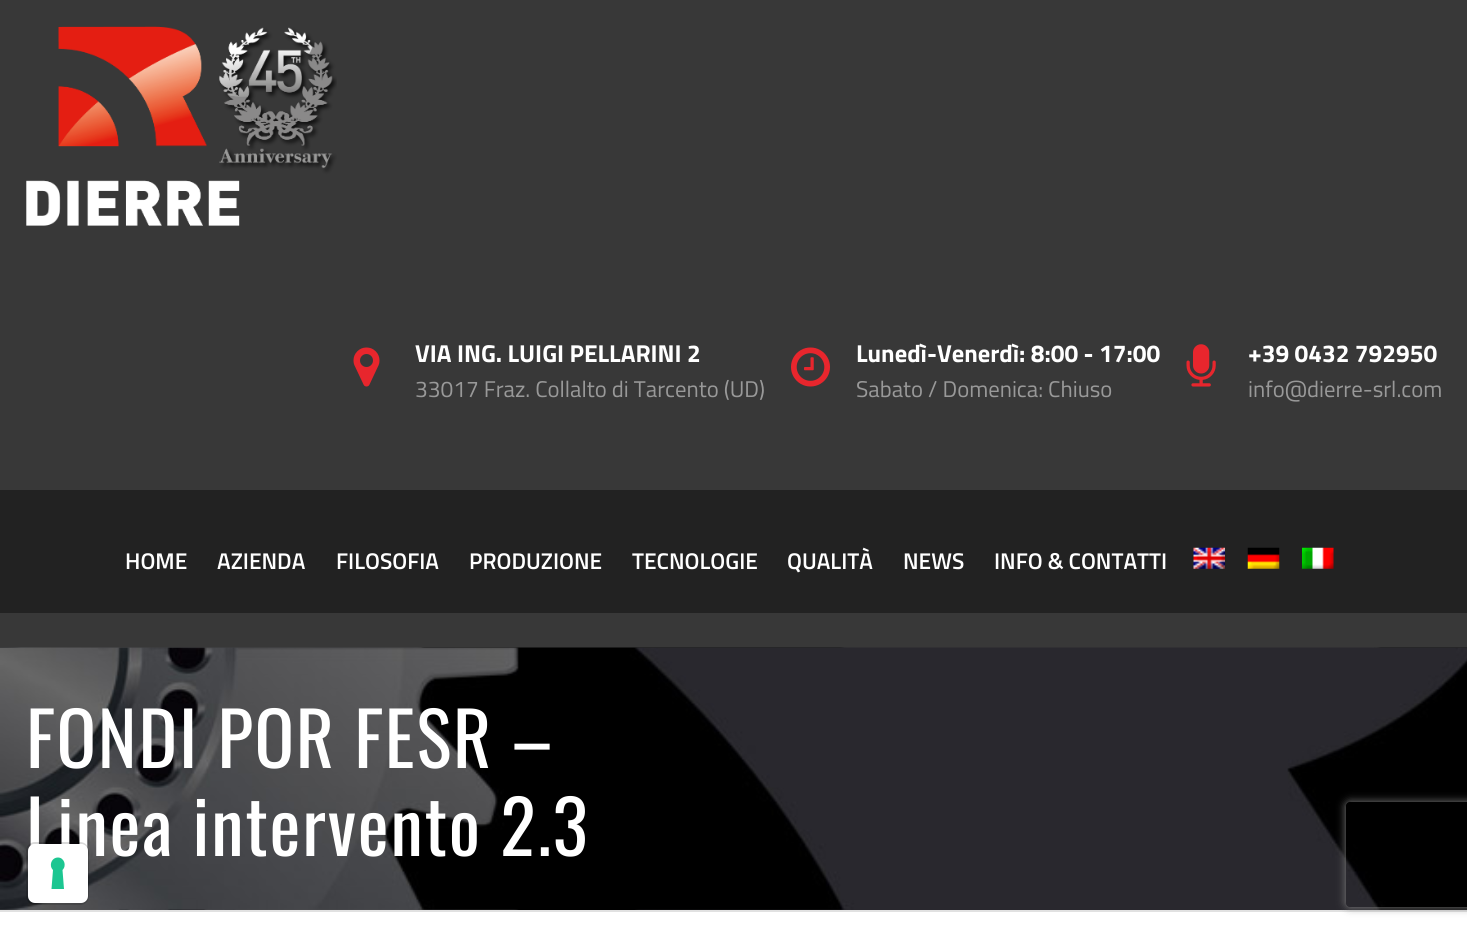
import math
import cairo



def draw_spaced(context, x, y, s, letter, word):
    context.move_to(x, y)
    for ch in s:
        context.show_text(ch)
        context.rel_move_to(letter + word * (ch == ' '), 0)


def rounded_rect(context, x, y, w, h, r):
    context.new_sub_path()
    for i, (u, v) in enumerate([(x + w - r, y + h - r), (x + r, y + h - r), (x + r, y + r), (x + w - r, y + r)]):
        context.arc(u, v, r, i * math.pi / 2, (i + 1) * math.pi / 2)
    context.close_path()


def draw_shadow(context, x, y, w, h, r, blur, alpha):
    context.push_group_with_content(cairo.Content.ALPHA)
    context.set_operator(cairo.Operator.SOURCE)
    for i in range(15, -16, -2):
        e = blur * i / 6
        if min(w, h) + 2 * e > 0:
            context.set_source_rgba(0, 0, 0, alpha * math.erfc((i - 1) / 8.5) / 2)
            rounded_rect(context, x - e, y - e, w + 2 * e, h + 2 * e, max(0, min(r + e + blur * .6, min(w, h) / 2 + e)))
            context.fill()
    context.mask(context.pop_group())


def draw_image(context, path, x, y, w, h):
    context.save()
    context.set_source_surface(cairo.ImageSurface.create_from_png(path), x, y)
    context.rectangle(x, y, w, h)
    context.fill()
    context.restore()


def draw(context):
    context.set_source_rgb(56 / 255, 56 / 255, 56 / 255)
    context.paint()
    draw_image(context, "images/1.png", 26, 26, 311, 200)
    draw_image(context, "images/2.png", 353, 347, 27, 40)
    draw_image(context, "images/3.png", 791, 347, 39, 40)
    draw_image(context, "images/4.png", 1186, 344, 30, 43)
    context.set_source_rgb(34 / 255, 34 / 255, 34 / 255)
    context.rectangle(0, 490, 1467, 123)
    context.fill()
    draw_image(context, "images/5.png", 1193, 547, 32, 22)
    draw_image(context, "images/6.png", 1247, 547, 33, 22)
    draw_image(context, "images/7.png", 1302, 547, 32, 22)
    context.set_source_rgb(1, 1, 1)
    context.rectangle(0, 912, 1467, 19)
    context.fill()
    draw_image(context, "images/8.png", 0, 647, 1467, 263)
    context.set_source_rgb(225 / 255, 225 / 255, 225 / 255)
    context.rectangle(0, 910, 1467, 2)
    context.fill()
    context.save()
    context.set_fill_rule(cairo.FillRule.EVEN_ODD)
    context.new_path()
    context.move_to(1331, 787)
    context.line_to(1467, 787)
    context.line_to(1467, 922)
    context.line_to(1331, 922)
    context.close_path()
    context.move_to(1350, 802)
    context.line_to(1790, 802)
    context.curve_to(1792, 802, 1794, 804, 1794, 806)
    context.line_to(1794, 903)
    context.curve_to(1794, 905, 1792, 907, 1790, 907)
    context.line_to(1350, 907)
    context.curve_to(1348, 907, 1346, 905, 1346, 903)
    context.line_to(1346, 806)
    context.curve_to(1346, 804, 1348, 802, 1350, 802)
    context.close_path()
    context.clip()
    context.set_source_rgb(128 / 255, 128 / 255, 128 / 255)
    draw_shadow(context, 1346, 802, 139, 105, 4, 4.5, 1)
    context.restore()
    context.select_font_face("Titillium Web", cairo.FontSlant.NORMAL, cairo.FontWeight.BOLD)
    context.set_font_size(24.5)
    context.set_source_rgb(1, 1, 1)
    context.move_to(415, 362)
    context.show_text("VIA ING. LUIGI PELLARINI 2")
    context.select_font_face("Titillium Web")
    context.set_font_size(22.75)
    context.set_source_rgb(153 / 255, 153 / 255, 153 / 255)
    context.move_to(415, 397)
    context.show_text("33017 Fraz. Collalto di Tarcento (UD)")
    context.select_font_face("Titillium Web", cairo.FontSlant.NORMAL, cairo.FontWeight.BOLD)
    context.set_font_size(24.5)
    context.set_source_rgb(1, 1, 1)
    context.move_to(856, 362)
    context.show_text("Lunedì-Venerdì: 8:00 - 17:00")
    context.select_font_face("Titillium Web")
    context.set_font_size(22.75)
    context.set_source_rgb(153 / 255, 153 / 255, 153 / 255)
    context.move_to(856, 397)
    context.show_text("Sabato / Domenica: Chiuso")
    context.select_font_face("Titillium Web", cairo.FontSlant.NORMAL, cairo.FontWeight.BOLD)
    context.set_font_size(24.5)
    context.set_source_rgb(1, 1, 1)
    context.move_to(1248, 362)
    context.show_text("+39 0432 792950")
    context.select_font_face("Titillium Web")
    context.set_font_size(22.75)
    context.set_source_rgb(153 / 255, 153 / 255, 153 / 255)
    context.move_to(1248, 397)
    context.show_text("info@dierre-srl.com")
    context.select_font_face("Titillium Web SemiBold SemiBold")
    context.set_source_rgb(1, 1, 1)
    context.move_to(125, 569)
    context.show_text("HOME")
    context.move_to(217, 569)
    context.show_text("AZIENDA")
    context.move_to(336, 569)
    context.show_text("FILOSOFIA")
    context.move_to(469, 569)
    context.show_text("PRODUZIONE")
    context.move_to(632, 569)
    context.show_text("TECNOLOGIE")
    context.move_to(787, 569)
    context.show_text("QUALITÀ")
    context.move_to(903, 569)
    context.show_text("NEWS")
    context.move_to(994, 569)
    context.show_text("INFO & CONTATTI")
    context.select_font_face("Oswald")
    context.set_font_size(73.5)
    draw_spaced(context, 26, 768, "FONDI POR FESR –", 1.75, 0)
    draw_spaced(context, 26, 856, "Linea intervento 2.3", 1.75, 0)
    rounded_rect(context, 27, 843, 61, 61, 8)
    context.set_source_rgba(0, 0, 0, 0.15)
    context.stroke()
    context.set_source_rgb(1, 1, 1)
    rounded_rect(context, 28, 844, 60, 59, 7)
    context.fill()
    context.set_source_rgb(28 / 255, 198 / 255, 145 / 255)
    context.set_fill_rule(cairo.FillRule.EVEN_ODD)
    context.new_path()
    context.move_to(58, 857.5)
    context.curve_to(64, 857.5, 67, 865.5, 62.5, 870)
    context.line_to(64, 889)
    context.line_to(51.5, 889)
    context.line_to(53, 870)
    context.curve_to(48.5, 865.5, 51.5, 857.5, 58, 857.5)
    context.close_path()
    context.fill()


surface = cairo.ImageSurface(cairo.Format.RGB24, 1467, 931)
context = cairo.Context(surface)
options = cairo.FontOptions()
options.set_hint_metrics(cairo.HintMetrics.OFF)
options.set_hint_style(cairo.HintStyle.NONE)
context.set_font_options(options)
context.set_miter_limit(4)
draw(context)
surface.write_to_png("out.png")
